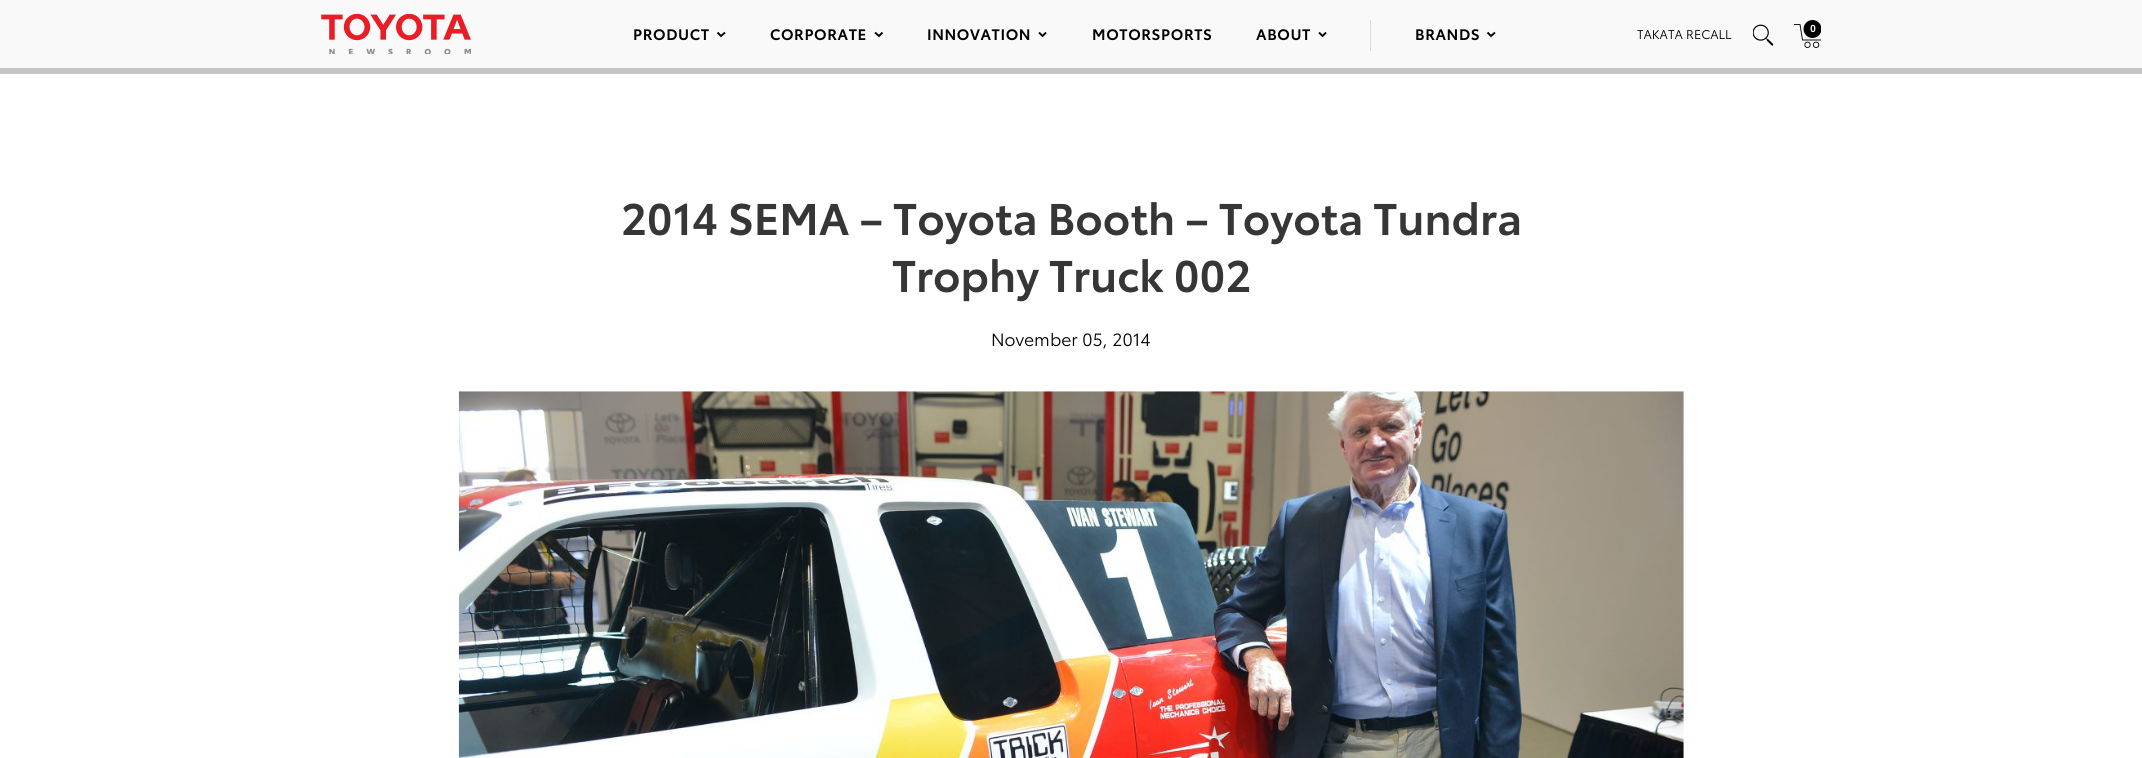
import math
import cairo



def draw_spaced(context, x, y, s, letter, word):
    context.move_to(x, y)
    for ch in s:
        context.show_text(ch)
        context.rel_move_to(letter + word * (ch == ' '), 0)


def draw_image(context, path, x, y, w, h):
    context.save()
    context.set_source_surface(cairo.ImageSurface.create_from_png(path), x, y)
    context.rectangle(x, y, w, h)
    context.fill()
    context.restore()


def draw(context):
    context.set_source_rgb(1, 1, 1)
    context.paint()
    context.set_source_rgb(249 / 255, 249 / 255, 249 / 255)
    context.rectangle(0, 0, 2142, 68)
    context.fill()
    draw_image(context, "images/1.png", 321, 14, 150, 40)
    context.new_path()
    context.move_to(725, 32.5)
    context.line_to(721, 36)
    context.line_to(717.5, 32.5)
    context.set_source_rgb(0, 0, 0)
    context.set_line_width(1.9)
    context.stroke()
    context.new_path()
    context.move_to(882.5, 32.5)
    context.line_to(879, 36)
    context.line_to(875, 32.5)
    context.stroke()
    context.new_path()
    context.move_to(1046, 32.5)
    context.line_to(1042.5, 36)
    context.line_to(1039, 32.5)
    context.stroke()
    context.new_path()
    context.move_to(1326, 32.5)
    context.line_to(1322.5, 36)
    context.line_to(1319, 32.5)
    context.stroke()
    context.set_source_rgb(219 / 255, 219 / 255, 219 / 255)
    context.rectangle(1370, 20, 1, 31)
    context.fill()
    context.new_path()
    context.move_to(1495, 32.5)
    context.line_to(1491, 36)
    context.line_to(1487.5, 32.5)
    context.set_source_rgb(0, 0, 0)
    context.stroke()
    draw_image(context, "images/2.png", 1753, 24, 21, 22)
    context.save()
    context.rectangle(1794, 20, 27, 29)
    context.clip()
    context.new_path()
    context.move_to(1821, 40)
    context.line_to(1802.5, 40)
    context.line_to(1800, 24.5)
    context.line_to(1794, 24.5)
    context.set_line_width(0.9)
    context.set_line_cap(cairo.LineCap.ROUND)
    context.set_line_join(cairo.LineJoin.ROUND)
    context.stroke()
    context.arc(1812.5, 29, 9, 0, 2 * math.pi)
    context.fill()
    context.restore()
    context.arc(1807.5, 44.8, 2.7, 0, 2 * math.pi)
    context.set_line_width(0.9)
    context.stroke()
    context.arc(1816.1, 44.8, 2.7, 0, 2 * math.pi)
    context.stroke()
    context.set_source_rgb(198 / 255, 198 / 255, 198 / 255)
    context.rectangle(0, 68, 2142, 6)
    context.fill()
    draw_image(context, "images/3.png", 458, 391, 1226, 367)
    context.select_font_face("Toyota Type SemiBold")
    context.set_font_size(15)
    context.set_source_rgb(0, 0, 0)
    draw_spaced(context, 633, 40, "PRODUCT", 0.6, 0)
    draw_spaced(context, 770, 40, "CORPORATE", 0.6, 0)
    draw_spaced(context, 927, 40, "INNOVATION", 0.6, 0)
    draw_spaced(context, 1092, 40, "MOTORSPORTS", 0.6, 0)
    draw_spaced(context, 1256, 40, "ABOUT", 0.6, 0)
    draw_spaced(context, 1415, 40, "BRANDS", 0.6, 0)
    context.set_font_size(10)
    context.set_source_rgb(1, 1, 1)
    context.move_to(1810, 32)
    context.show_text("0")
    context.select_font_face("Toyota Type")
    context.set_font_size(12.5)
    context.set_source_rgb(0, 0, 0)
    context.move_to(1637, 39)
    context.show_text("TAKATA RECALL")
    context.select_font_face("Toyota Type SemiBold")
    context.set_font_size(43.75)
    context.set_source_rgb(54 / 255, 54 / 255, 54 / 255)
    context.move_to(621, 235)
    context.show_text("2014 SEMA – Toyota Booth – Toyota Tundra")
    context.move_to(892, 292)
    context.show_text("Trophy Truck 002")
    context.select_font_face("Toyota Type")
    context.set_font_size(17.5)
    context.set_source_rgb(0, 0, 0)
    context.move_to(991, 346)
    context.show_text("November 05, 2014")


surface = cairo.ImageSurface(cairo.Format.RGB24, 2142, 758)
context = cairo.Context(surface)
options = cairo.FontOptions()
options.set_hint_metrics(cairo.HintMetrics.OFF)
options.set_hint_style(cairo.HintStyle.NONE)
context.set_font_options(options)
context.set_miter_limit(4)
draw(context)
surface.write_to_png("out.png")
